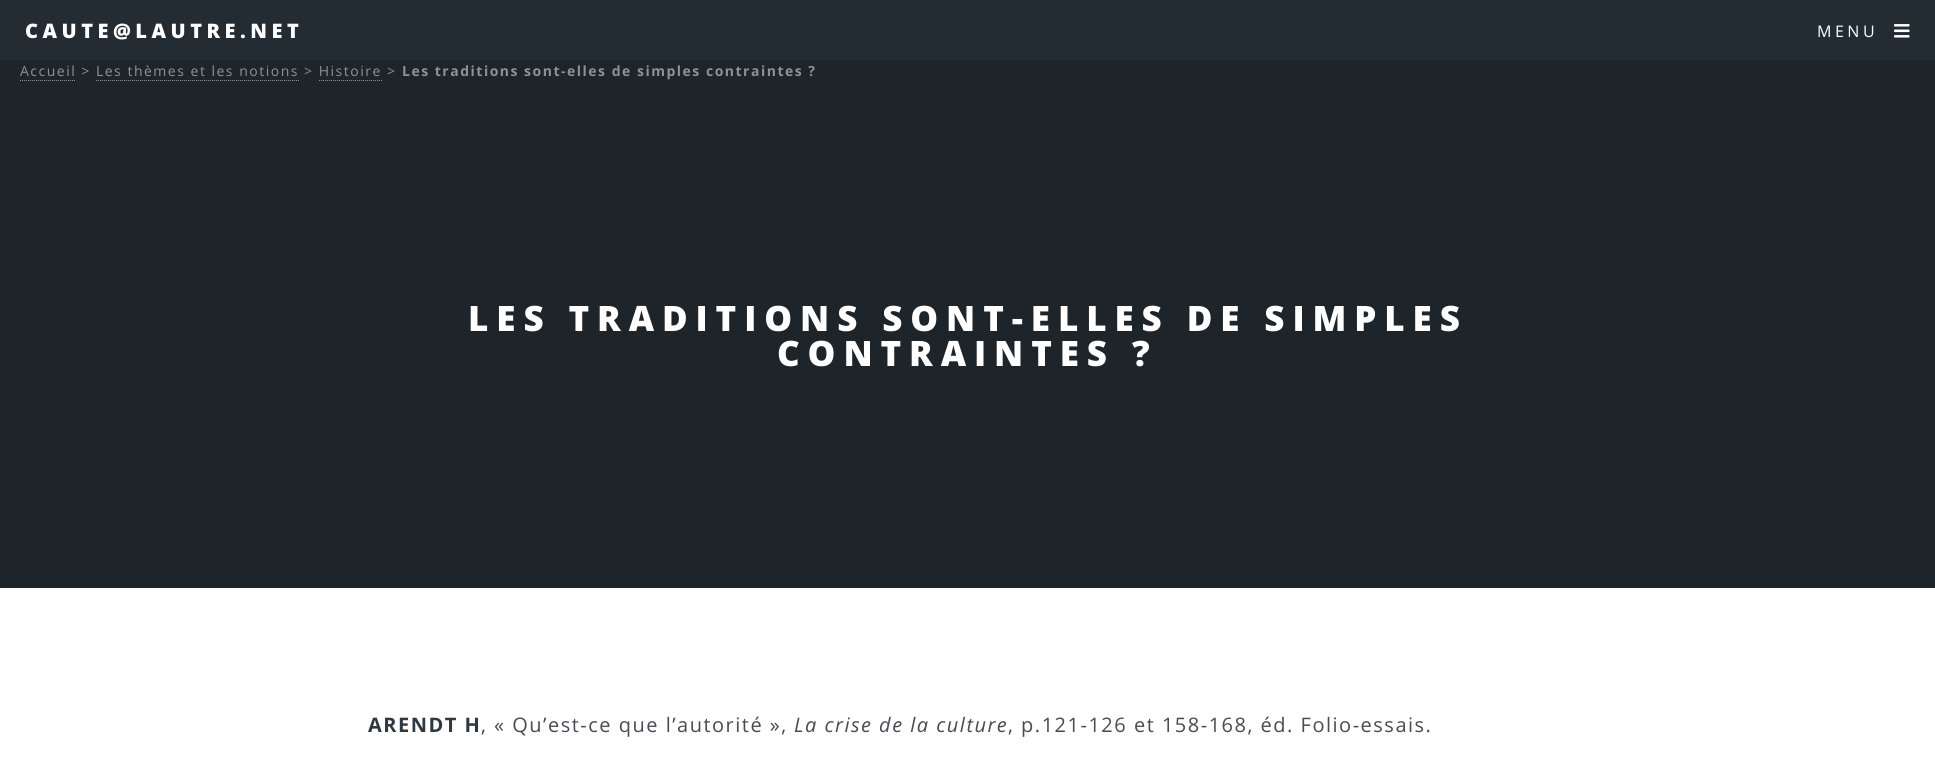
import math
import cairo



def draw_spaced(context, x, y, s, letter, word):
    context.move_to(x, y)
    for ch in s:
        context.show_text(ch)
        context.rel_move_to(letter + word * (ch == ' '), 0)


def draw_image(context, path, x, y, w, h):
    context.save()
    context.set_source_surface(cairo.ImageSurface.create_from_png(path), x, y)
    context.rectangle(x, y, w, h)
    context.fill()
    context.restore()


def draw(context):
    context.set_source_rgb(29 / 255, 36 / 255, 42 / 255)
    context.paint()
    context.set_source_rgb(36 / 255, 44 / 255, 51 / 255)
    context.rectangle(0, 0, 1935, 60)
    context.fill()
    draw_image(context, "images/1.png", 1894, 24, 16, 14)
    context.new_path()
    context.move_to(20, 80.5)
    context.line_to(76, 80.5)
    context.set_source_rgb(142 / 255, 146 / 255, 149 / 255)
    context.set_line_width(1)
    context.set_dash([1, 1])
    context.stroke()
    context.new_path()
    context.move_to(96, 80.5)
    context.line_to(299, 80.5)
    context.stroke()
    context.new_path()
    context.move_to(319, 80.5)
    context.line_to(382, 80.5)
    context.stroke()
    context.set_source_rgb(1, 1, 1)
    context.rectangle(0, 588, 1935, 186)
    context.fill()
    context.select_font_face("Open Sans ExtraBold")
    context.set_font_size(20)
    draw_spaced(context, 25, 38, "CAUTE@LAUTRE.NET", 4.5, 0)
    context.select_font_face("Open Sans")
    context.set_font_size(16)
    draw_spaced(context, 1817, 37, "MENU", 3.5, 0)
    context.set_font_size(14)
    context.set_source_rgb(142 / 255, 146 / 255, 149 / 255)
    draw_spaced(context, 20, 76, "Accueil > Les thèmes et les notions > Histoire >", 1.5, 0)
    context.select_font_face("Open Sans", cairo.FontSlant.NORMAL, cairo.FontWeight.BOLD)
    draw_spaced(context, 402, 76, "Les traditions sont-elles de simples contraintes ?", 1.5, 0)
    context.select_font_face("Open Sans ExtraBold")
    context.set_font_size(35)
    context.set_source_rgb(1, 1, 1)
    draw_spaced(context, 468, 331, "LES TRADITIONS SONT-ELLES DE SIMPLES", 7.9, 0)
    draw_spaced(context, 777, 366, "CONTRAINTES ?", 7.9, 0)
    context.select_font_face("Open Sans", cairo.FontSlant.NORMAL, cairo.FontWeight.BOLD)
    context.set_font_size(20)
    context.set_source_rgb(46 / 255, 56 / 255, 66 / 255)
    draw_spaced(context, 368, 732, "ARENDT H", 1.5, 0)
    context.select_font_face("Open Sans")
    context.set_source_rgb(78 / 255, 72 / 255, 82 / 255)
    draw_spaced(context, 481, 732, ", « Qu’est-ce que l’autorité »,", 1.5, 0)
    context.select_font_face("Open Sans", cairo.FontSlant.ITALIC)
    draw_spaced(context, 794, 732, "La crise de la culture", 1.5, 0)
    context.select_font_face("Open Sans")
    draw_spaced(context, 1008, 732, ", p.121-126 et 158-168, éd. Folio-essais.", 1.5, 0)


surface = cairo.ImageSurface(cairo.Format.RGB24, 1935, 774)
context = cairo.Context(surface)
options = cairo.FontOptions()
options.set_hint_metrics(cairo.HintMetrics.OFF)
options.set_hint_style(cairo.HintStyle.NONE)
context.set_font_options(options)
context.set_miter_limit(4)
draw(context)
surface.write_to_png("out.png")
